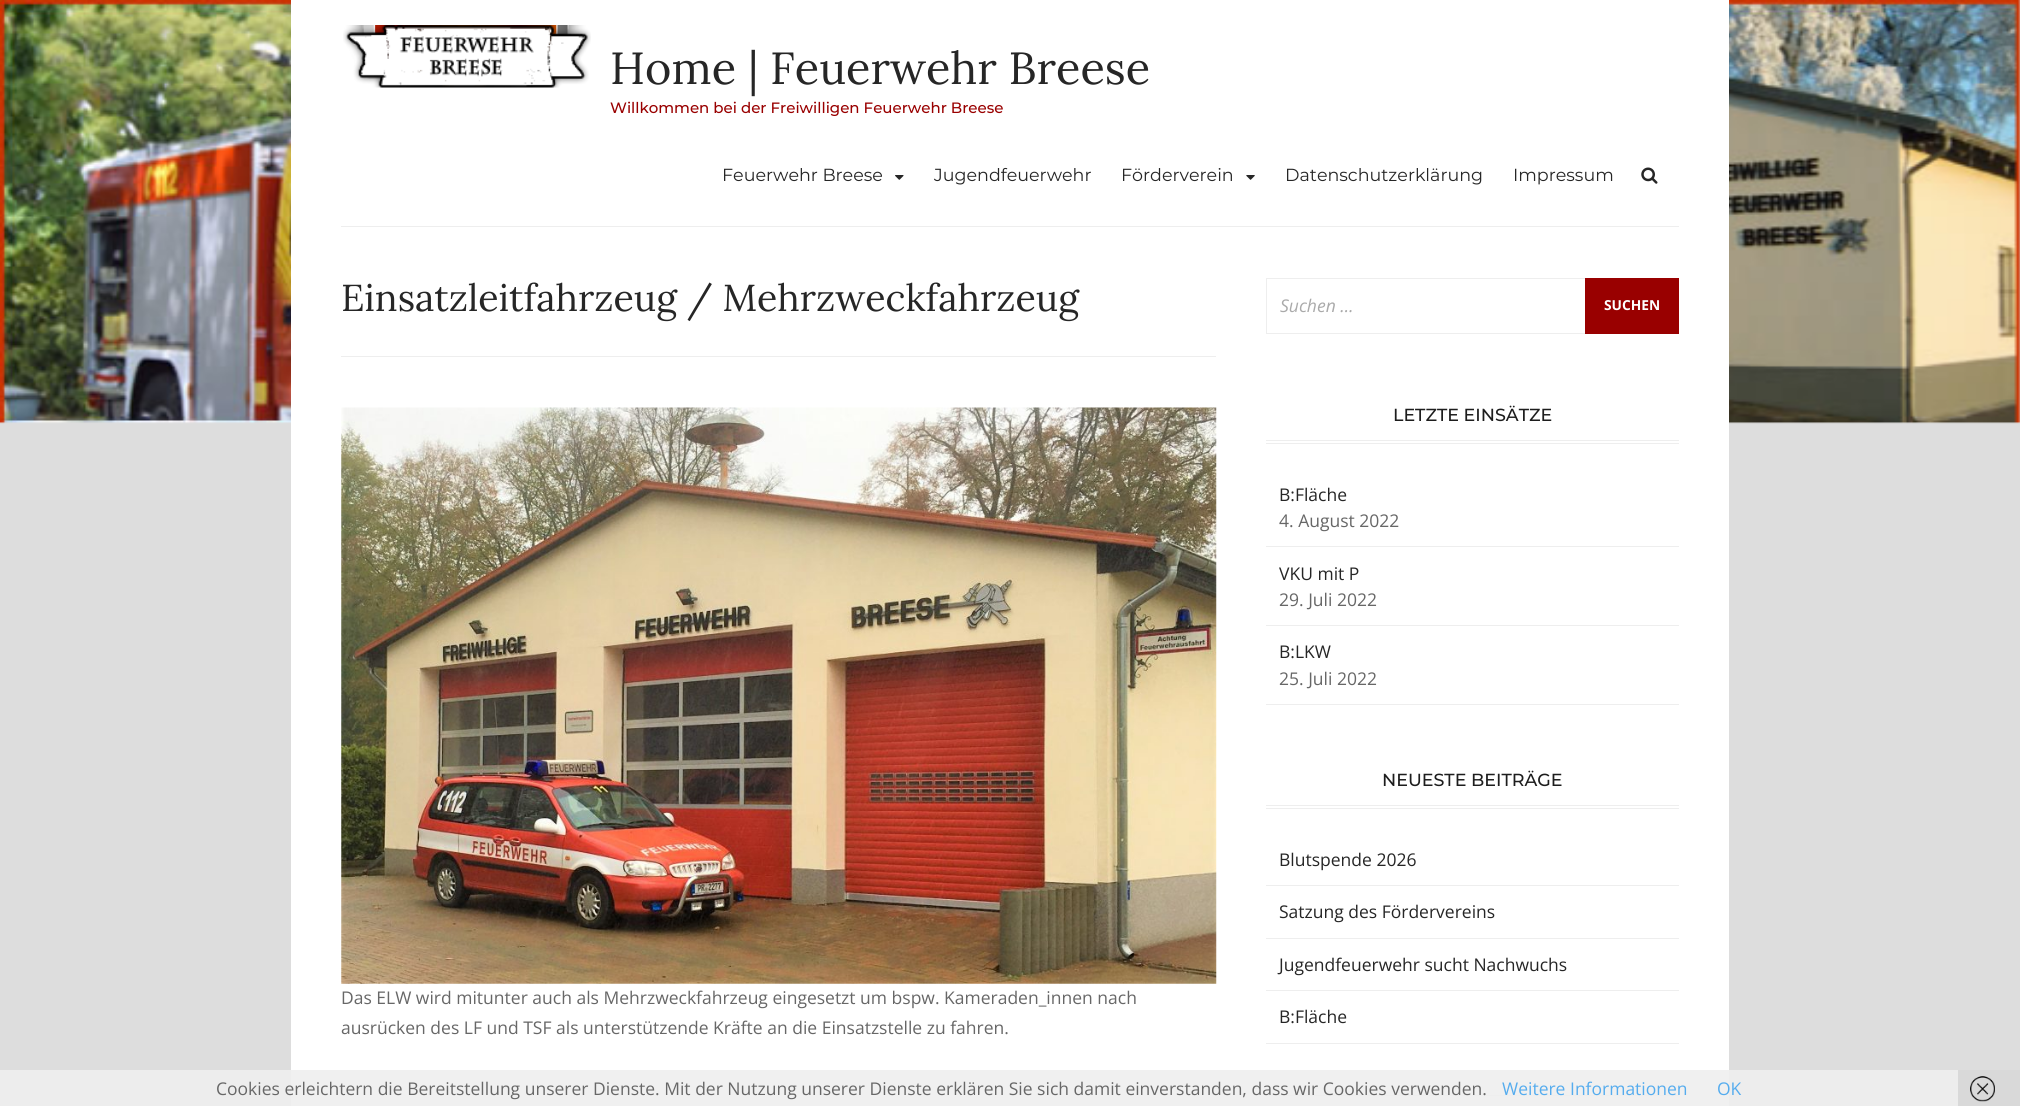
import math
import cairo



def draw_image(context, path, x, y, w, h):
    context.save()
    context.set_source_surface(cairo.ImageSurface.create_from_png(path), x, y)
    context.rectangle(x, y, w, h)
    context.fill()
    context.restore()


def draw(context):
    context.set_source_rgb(221 / 255, 221 / 255, 221 / 255)
    context.paint()
    draw_image(context, "images/1.png", 0, 0, 2020, 424)
    context.set_source_rgb(1, 1, 1)
    context.rectangle(291, 0, 1438, 1106)
    context.fill()
    context.set_source_rgb(238 / 255, 238 / 255, 238 / 255)
    context.rectangle(341, 226, 1338, 1)
    context.fill()
    draw_image(context, "images/2.png", 343, 25, 248, 63)
    draw_image(context, "images/3.png", 895, 175, 9, 5)
    draw_image(context, "images/4.png", 1246, 175, 9, 5)
    draw_image(context, "images/5.png", 1641, 167, 17, 17)
    context.rectangle(341, 356, 875, 1)
    context.fill()
    draw_image(context, "images/6.png", 341, 407, 876, 577)
    context.rectangle(1266.5, 278.5, 412, 55)
    context.set_line_width(1)
    context.stroke()
    context.set_source_rgb(153 / 255, 0, 0)
    context.rectangle(1585, 278, 94, 56)
    context.fill()
    context.set_source_rgb(238 / 255, 238 / 255, 238 / 255)
    context.rectangle(1266, 440, 413, 1)
    context.fill()
    context.rectangle(1266, 443, 413, 1)
    context.fill()
    context.rectangle(1266, 546, 413, 1)
    context.fill()
    context.rectangle(1266, 625, 413, 1)
    context.fill()
    context.rectangle(1266, 704, 413, 1)
    context.fill()
    context.rectangle(1266, 805, 413, 1)
    context.fill()
    context.rectangle(1266, 808, 413, 1)
    context.fill()
    context.rectangle(1266, 885, 413, 1)
    context.fill()
    context.rectangle(1266, 938, 413, 1)
    context.fill()
    context.rectangle(1266, 990, 413, 1)
    context.fill()
    context.rectangle(1266, 1043, 413, 1)
    context.fill()
    context.rectangle(1266, 1095, 413, 1)
    context.fill()
    context.set_source_rgba(238 / 255, 238 / 255, 238 / 255, 0.9)
    context.rectangle(0, 1070, 1958, 36)
    context.fill()
    context.set_source_rgb(217 / 255, 217 / 255, 217 / 255)
    context.rectangle(1958, 1070, 62, 36)
    context.fill()
    draw_image(context, "images/7.png", 1970, 1076, 25, 26)
    context.select_font_face("Lora")
    context.set_font_size(45)
    context.set_source_rgb(38 / 255, 38 / 255, 38 / 255)
    context.move_to(610, 84)
    context.show_text("Home | Feuerwehr Breese")
    context.select_font_face("Montserrat Medium")
    context.set_font_size(15)
    context.set_source_rgb(153 / 255, 0, 0)
    context.move_to(610, 113)
    context.show_text("Willkommen bei der Freiwilligen Feuerwehr Breese")
    context.select_font_face("Montserrat")
    context.set_font_size(17.5)
    context.set_source_rgb(38 / 255, 38 / 255, 38 / 255)
    context.move_to(722, 181)
    context.show_text("Feuerwehr Breese")
    context.move_to(934, 181)
    context.show_text("Jugendfeuerwehr")
    context.move_to(1121, 181)
    context.show_text("Förderverein")
    context.move_to(1285, 181)
    context.show_text("Datenschutzerklärung")
    context.move_to(1513, 181)
    context.show_text("Impressum")
    context.select_font_face("Lora")
    context.set_font_size(37.5)
    context.move_to(341, 311)
    context.show_text("Einsatzleitfahrzeug / Mehrzweckfahrzeug")
    context.select_font_face("Open Sans")
    context.set_font_size(17.5)
    context.set_source_rgb(103 / 255, 103 / 255, 103 / 255)
    context.move_to(341, 1004)
    context.show_text("Das ELW wird mitunter auch als Mehrzweckfahrzeug eingesetzt um bspw. Kameraden_innen nach")
    context.move_to(341, 1034)
    context.show_text("ausrücken des LF und TSF als unterstützende Kräfte an die Einsatzstelle zu fahren.")
    context.select_font_face("Open Sans", cairo.FontSlant.ITALIC)
    context.set_source_rgb(170 / 255, 170 / 255, 170 / 255)
    context.move_to(1280, 312)
    context.show_text("Suchen …")
    context.select_font_face("Open Sans", cairo.FontSlant.NORMAL, cairo.FontWeight.BOLD)
    context.set_font_size(13.75)
    context.set_source_rgb(1, 1, 1)
    context.move_to(1604, 310)
    context.show_text("SUCHEN")
    context.select_font_face("Montserrat Medium")
    context.set_font_size(17.5)
    context.set_source_rgb(29 / 255, 29 / 255, 29 / 255)
    context.move_to(1393, 421)
    context.show_text("LETZTE EINSÄTZE")
    context.select_font_face("Open Sans")
    context.set_source_rgb(38 / 255, 38 / 255, 38 / 255)
    context.move_to(1279, 501)
    context.show_text("B:Fläche")
    context.set_source_rgb(103 / 255, 103 / 255, 103 / 255)
    context.move_to(1279, 527)
    context.show_text("4. August 2022")
    context.set_source_rgb(38 / 255, 38 / 255, 38 / 255)
    context.move_to(1279, 580)
    context.show_text("VKU mit P")
    context.set_source_rgb(103 / 255, 103 / 255, 103 / 255)
    context.move_to(1279, 606)
    context.show_text("29. Juli 2022")
    context.set_source_rgb(38 / 255, 38 / 255, 38 / 255)
    context.move_to(1279, 658)
    context.show_text("B:LKW")
    context.set_source_rgb(103 / 255, 103 / 255, 103 / 255)
    context.move_to(1279, 685)
    context.show_text("25. Juli 2022")
    context.select_font_face("Montserrat Medium")
    context.set_source_rgb(29 / 255, 29 / 255, 29 / 255)
    context.move_to(1382, 786)
    context.show_text("NEUESTE BEITRÄGE")
    context.select_font_face("Open Sans")
    context.set_source_rgb(38 / 255, 38 / 255, 38 / 255)
    context.move_to(1279, 866)
    context.show_text("Blutspende 2026")
    context.move_to(1279, 918)
    context.show_text("Satzung des Fördervereins")
    context.move_to(1279, 971)
    context.show_text("Jugendfeuerwehr sucht Nachwuchs")
    context.move_to(1279, 1023)
    context.show_text("B:Fläche")
    context.set_source_rgb(103 / 255, 103 / 255, 103 / 255)
    context.move_to(216, 1095)
    context.show_text("Cookies erleichtern die Bereitstellung unserer Dienste. Mit der Nutzung unserer Dienste erklären Sie sich damit einverstanden, dass wir Cookies verwenden.")
    context.set_source_rgb(85 / 255, 172 / 255, 238 / 255)
    context.move_to(1502, 1095)
    context.show_text("Weitere Informationen")
    context.move_to(1717, 1095)
    context.show_text("OK")


surface = cairo.ImageSurface(cairo.Format.RGB24, 2020, 1106)
context = cairo.Context(surface)
options = cairo.FontOptions()
options.set_hint_metrics(cairo.HintMetrics.OFF)
options.set_hint_style(cairo.HintStyle.NONE)
context.set_font_options(options)
context.set_miter_limit(4)
draw(context)
surface.write_to_png("out.png")
